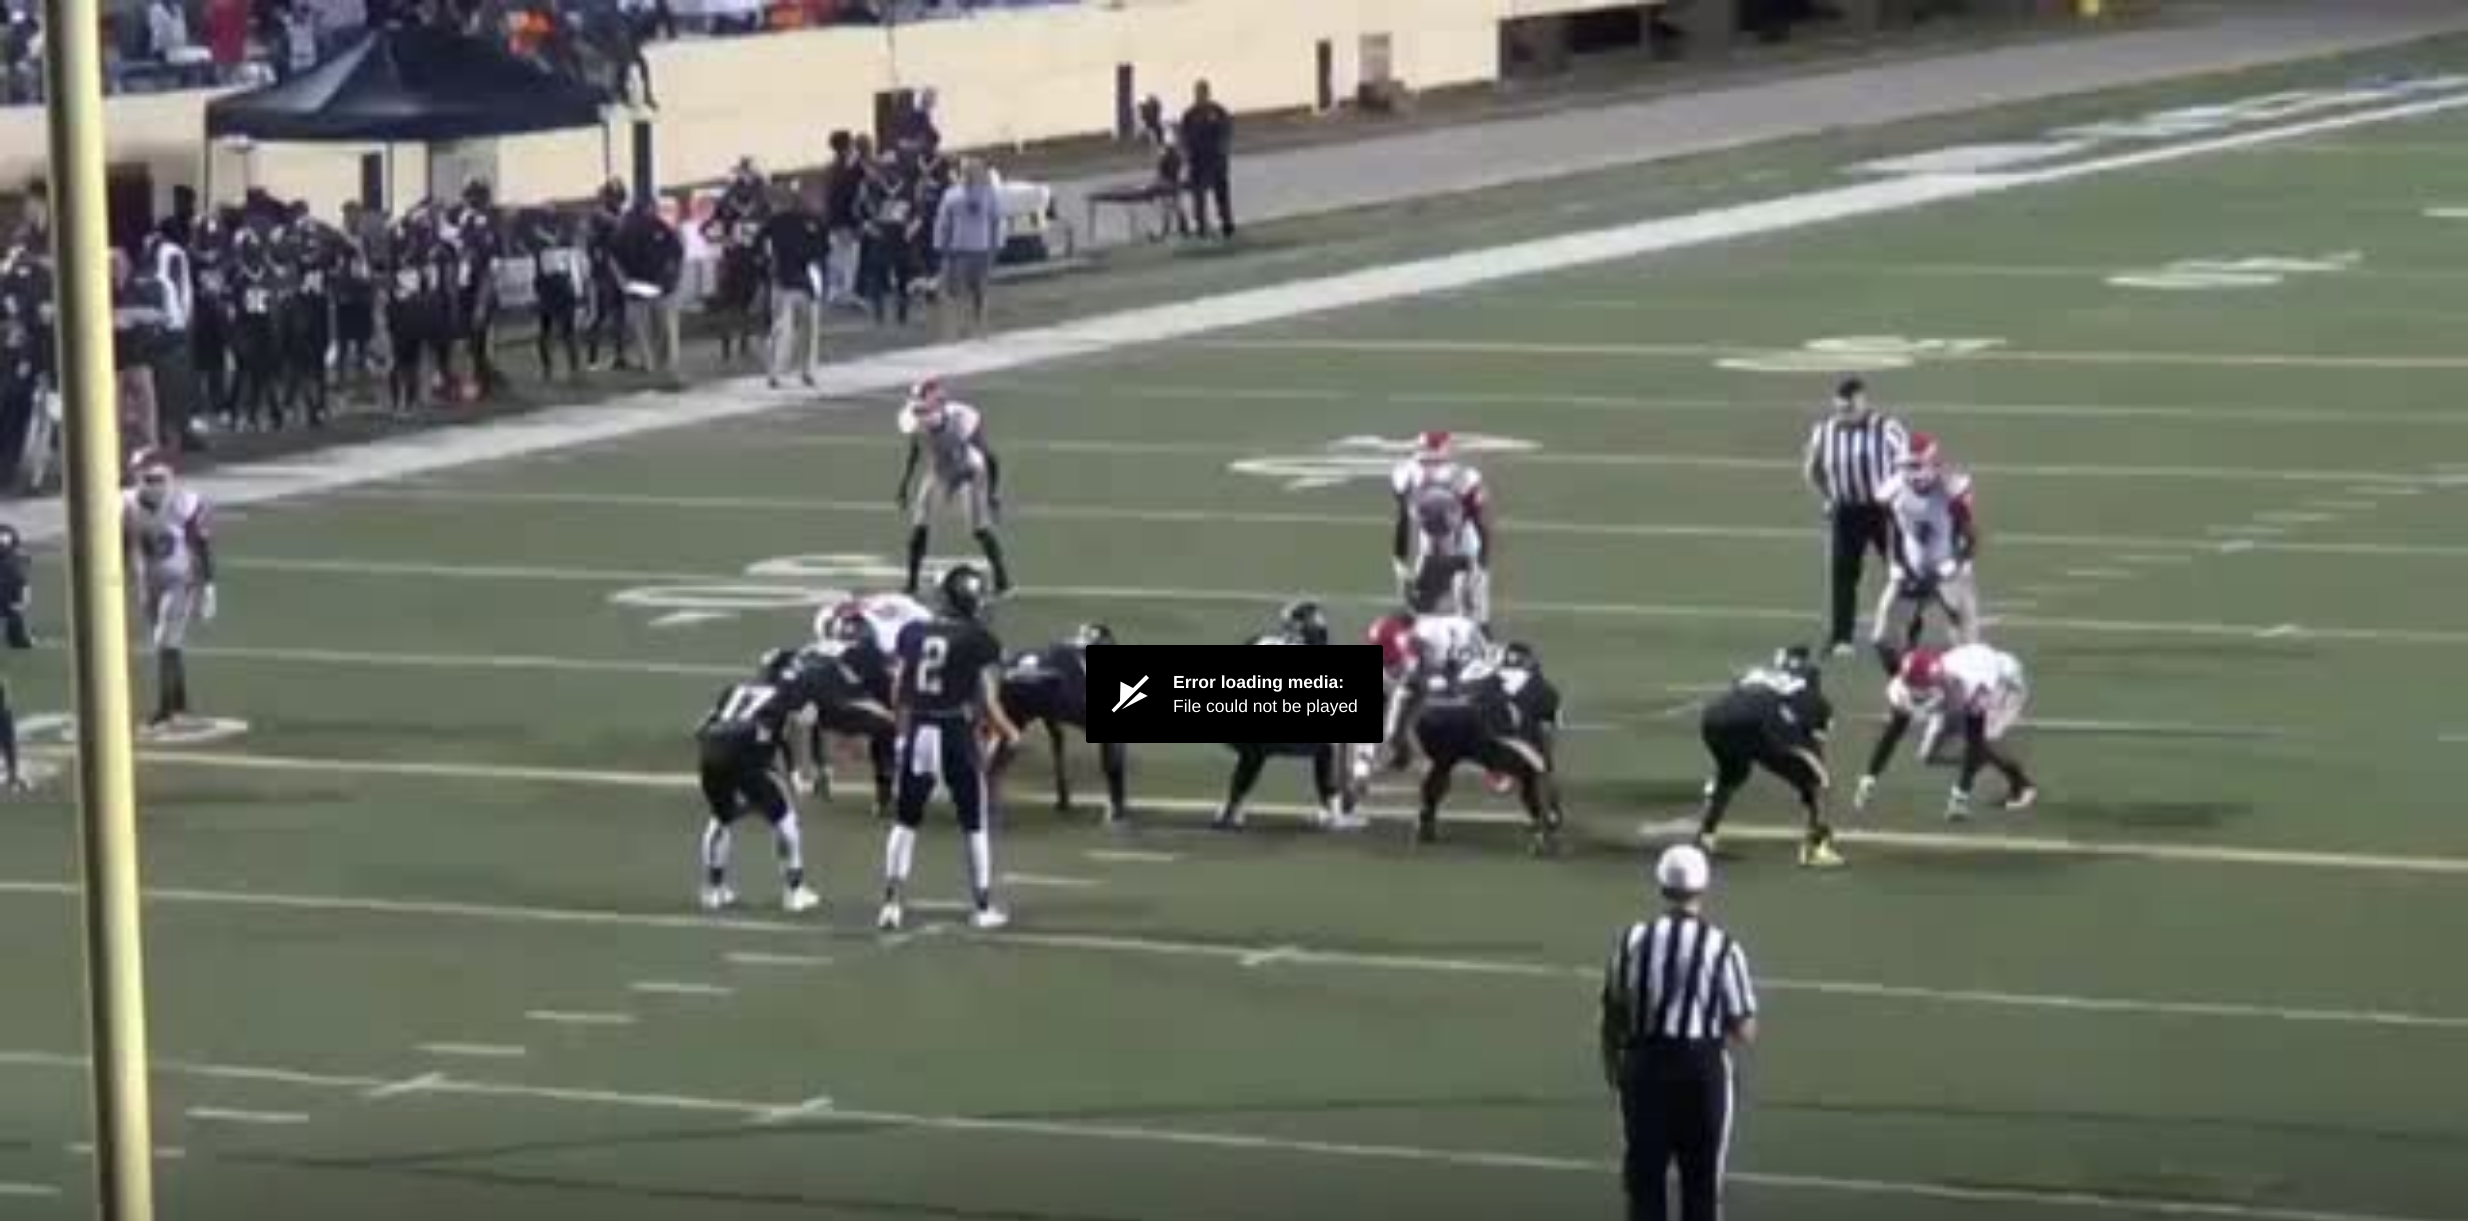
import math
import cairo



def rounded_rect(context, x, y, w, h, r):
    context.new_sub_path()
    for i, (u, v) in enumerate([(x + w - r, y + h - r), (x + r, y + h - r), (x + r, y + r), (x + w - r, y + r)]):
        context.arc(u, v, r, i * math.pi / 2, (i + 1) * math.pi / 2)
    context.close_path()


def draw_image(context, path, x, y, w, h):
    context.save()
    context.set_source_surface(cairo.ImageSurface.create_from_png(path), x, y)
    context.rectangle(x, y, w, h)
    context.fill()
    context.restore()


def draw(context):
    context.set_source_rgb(1, 1, 1)
    context.paint()
    draw_image(context, "images/1.png", 0, 0, 2468, 1221)
    context.set_source_rgb(0, 0, 0)
    rounded_rect(context, 1086, 645, 297, 98, 2.5)
    context.fill()
    context.set_source_rgb(1, 1, 1)
    context.new_path()
    context.move_to(1147.5, 696)
    context.line_to(1121.5, 709.5)
    context.line_to(1140, 692)
    context.curve_to(1147, 695.5, 1148.5, 696, 1147.5, 696.5)
    context.close_path()
    context.move_to(1146, 675)
    context.line_to(1133, 688)
    context.line_to(1120.5, 681.5)
    context.line_to(1120, 701)
    context.line_to(1111.5, 710)
    context.line_to(1114, 712.5)
    context.line_to(1149, 678)
    context.close_path()
    context.fill()
    context.select_font_face("Liberation Sans", cairo.FontSlant.NORMAL, cairo.FontWeight.BOLD)
    context.set_font_size(17.5)
    context.move_to(1173, 688)
    context.show_text("Error loading media:")
    context.select_font_face("Liberation Sans")
    context.move_to(1173, 712)
    context.show_text("File could not be played")


surface = cairo.ImageSurface(cairo.Format.RGB24, 2468, 1221)
context = cairo.Context(surface)
options = cairo.FontOptions()
options.set_hint_metrics(cairo.HintMetrics.OFF)
options.set_hint_style(cairo.HintStyle.NONE)
context.set_font_options(options)
context.set_miter_limit(4)
draw(context)
surface.write_to_png("out.png")
